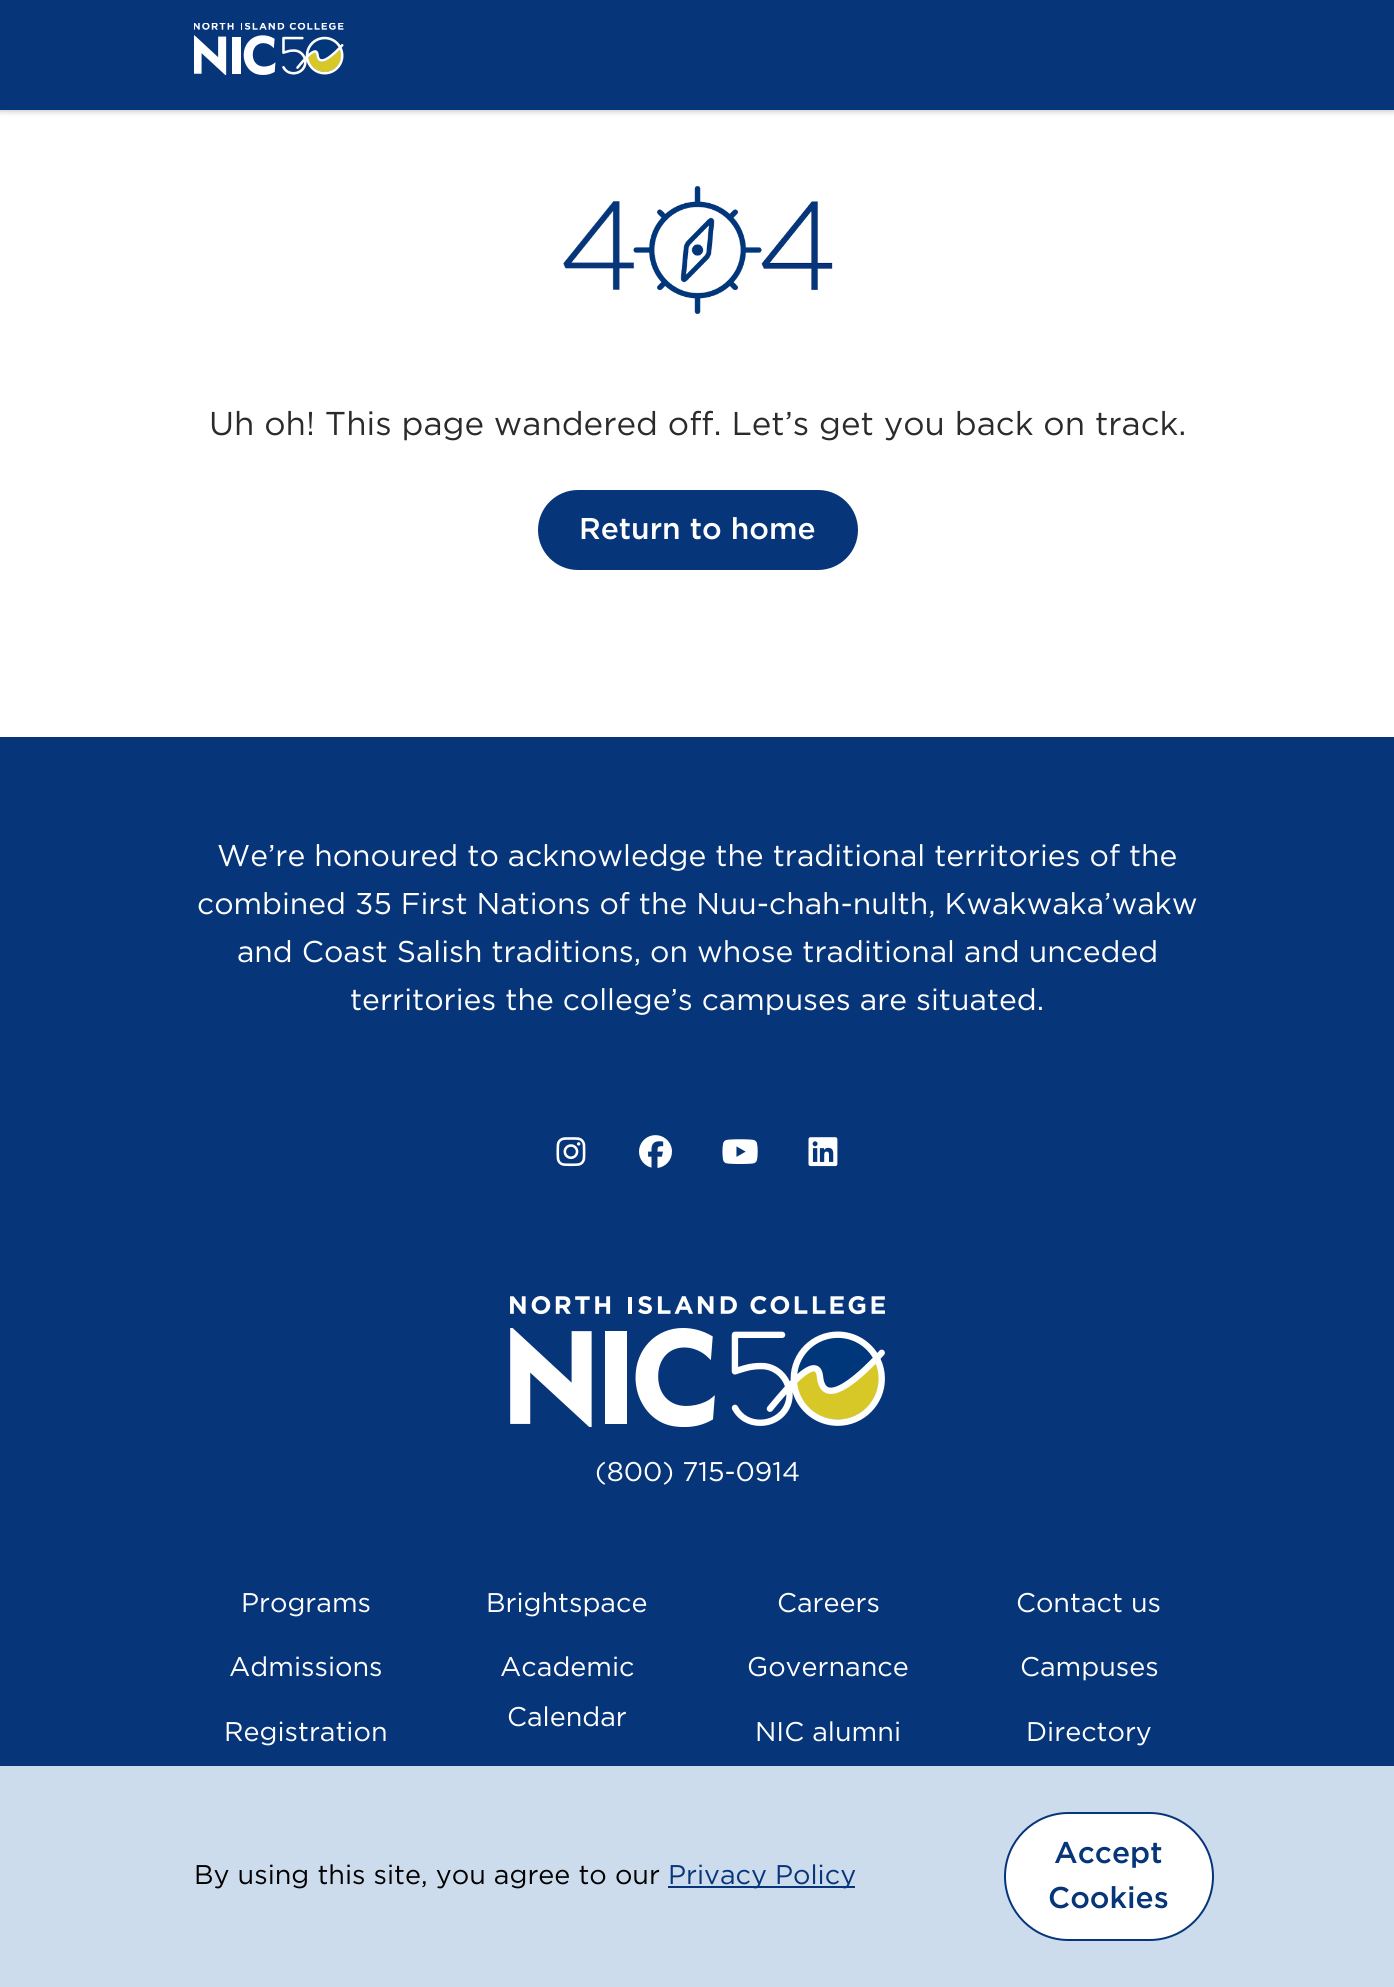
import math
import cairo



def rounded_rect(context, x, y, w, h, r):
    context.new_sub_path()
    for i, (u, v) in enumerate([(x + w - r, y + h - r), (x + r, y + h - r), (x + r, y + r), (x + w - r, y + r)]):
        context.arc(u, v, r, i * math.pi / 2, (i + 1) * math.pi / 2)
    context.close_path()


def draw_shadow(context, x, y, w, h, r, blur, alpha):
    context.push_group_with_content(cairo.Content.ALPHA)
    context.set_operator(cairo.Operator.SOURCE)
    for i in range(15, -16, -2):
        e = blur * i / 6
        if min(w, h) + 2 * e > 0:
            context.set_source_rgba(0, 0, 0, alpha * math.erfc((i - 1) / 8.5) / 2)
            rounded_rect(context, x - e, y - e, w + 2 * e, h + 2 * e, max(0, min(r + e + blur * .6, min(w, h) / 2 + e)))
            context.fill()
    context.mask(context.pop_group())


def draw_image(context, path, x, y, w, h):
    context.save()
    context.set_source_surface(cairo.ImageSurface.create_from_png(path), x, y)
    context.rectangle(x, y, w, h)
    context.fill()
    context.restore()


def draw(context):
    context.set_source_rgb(1, 1, 1)
    context.paint()
    context.set_source_rgb(0, 0, 0)
    draw_shadow(context, 0, 2, 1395, 109, 0, 3, 0.25)
    context.set_source_rgb(6 / 255, 53 / 255, 122 / 255)
    context.rectangle(0, 0, 1394, 110)
    context.fill()
    draw_image(context, "images/1.png", 194, 23, 150, 52)
    draw_image(context, "images/2.png", 563, 186, 270, 128)
    rounded_rect(context, 537, 489, 322, 82, 41)
    context.fill_preserve()
    context.set_source_rgb(1, 1, 1)
    context.stroke()
    context.set_source_rgb(205 / 255, 220 / 255, 237 / 255)
    context.rectangle(0, 1766, 1394, 221)
    context.fill()
    context.set_source_rgb(6 / 255, 53 / 255, 122 / 255)
    context.rectangle(668, 1886, 187, 2)
    context.fill()
    context.set_source_rgb(1, 1, 1)
    rounded_rect(context, 1005, 1813, 208, 127, 63.5)
    context.fill_preserve()
    context.set_source_rgb(6 / 255, 53 / 255, 122 / 255)
    context.stroke()
    context.rectangle(0, 737, 1394, 1029)
    context.fill()
    draw_image(context, "images/3.png", 556, 1137, 30, 30)
    draw_image(context, "images/4.png", 639, 1135, 33, 33)
    draw_image(context, "images/5.png", 722, 1139, 36, 25)
    draw_image(context, "images/6.png", 808, 1137, 30, 30)
    draw_image(context, "images/7.png", 510, 1296, 375, 131)
    context.select_font_face("Gotham")
    context.set_font_size(33)
    context.set_source_rgb(43 / 255, 43 / 255, 43 / 255)
    context.move_to(209, 435)
    context.show_text("Uh oh! This page wandered off. Let’s get you back on track.")
    context.select_font_face("Gotham Medium")
    context.set_font_size(30)
    context.set_source_rgb(1, 1, 1)
    context.move_to(579, 539)
    context.show_text("Return to home")
    context.select_font_face("Gotham")
    context.set_font_size(27)
    context.set_source_rgb(0, 0, 0)
    context.move_to(194, 1884)
    context.show_text("By using this site, you agree to our")
    context.set_source_rgb(6 / 255, 53 / 255, 122 / 255)
    context.move_to(668, 1884)
    context.show_text("Privacy Policy")
    context.select_font_face("Gotham Medium")
    context.set_font_size(30)
    context.move_to(1054, 1863)
    context.show_text("Accept")
    context.move_to(1048, 1908)
    context.show_text("Cookies")
    context.select_font_face("Gotham")
    context.set_source_rgb(1, 1, 1)
    context.move_to(217, 866)
    context.show_text("We’re honoured to acknowledge the traditional territories of the")
    context.move_to(197, 914)
    context.show_text("combined 35 First Nations of the Nuu-chah-nulth, Kwakwaka’wakw")
    context.move_to(237, 962)
    context.show_text("and Coast Salish traditions, on whose traditional and unceded")
    context.move_to(350, 1010)
    context.show_text("territories the college’s campuses are situated.")
    context.set_font_size(27)
    context.move_to(595, 1481)
    context.show_text("(800) 715-0914")
    context.move_to(241, 1612)
    context.show_text("Programs")
    context.move_to(229, 1676)
    context.show_text("Admissions")
    context.move_to(224, 1741)
    context.show_text("Registration")
    context.move_to(486, 1612)
    context.show_text("Brightspace")
    context.move_to(500, 1676)
    context.show_text("Academic")
    context.move_to(507, 1726)
    context.show_text("Calendar")
    context.move_to(777, 1612)
    context.show_text("Careers")
    context.move_to(747, 1676)
    context.show_text("Governance")
    context.move_to(755, 1741)
    context.show_text("NIC alumni")
    context.move_to(1016, 1612)
    context.show_text("Contact us")
    context.move_to(1020, 1676)
    context.show_text("Campuses")
    context.move_to(1026, 1741)
    context.show_text("Directory")


surface = cairo.ImageSurface(cairo.Format.RGB24, 1394, 1987)
context = cairo.Context(surface)
options = cairo.FontOptions()
options.set_hint_metrics(cairo.HintMetrics.OFF)
options.set_hint_style(cairo.HintStyle.NONE)
context.set_font_options(options)
context.set_miter_limit(4)
draw(context)
surface.write_to_png("out.png")
